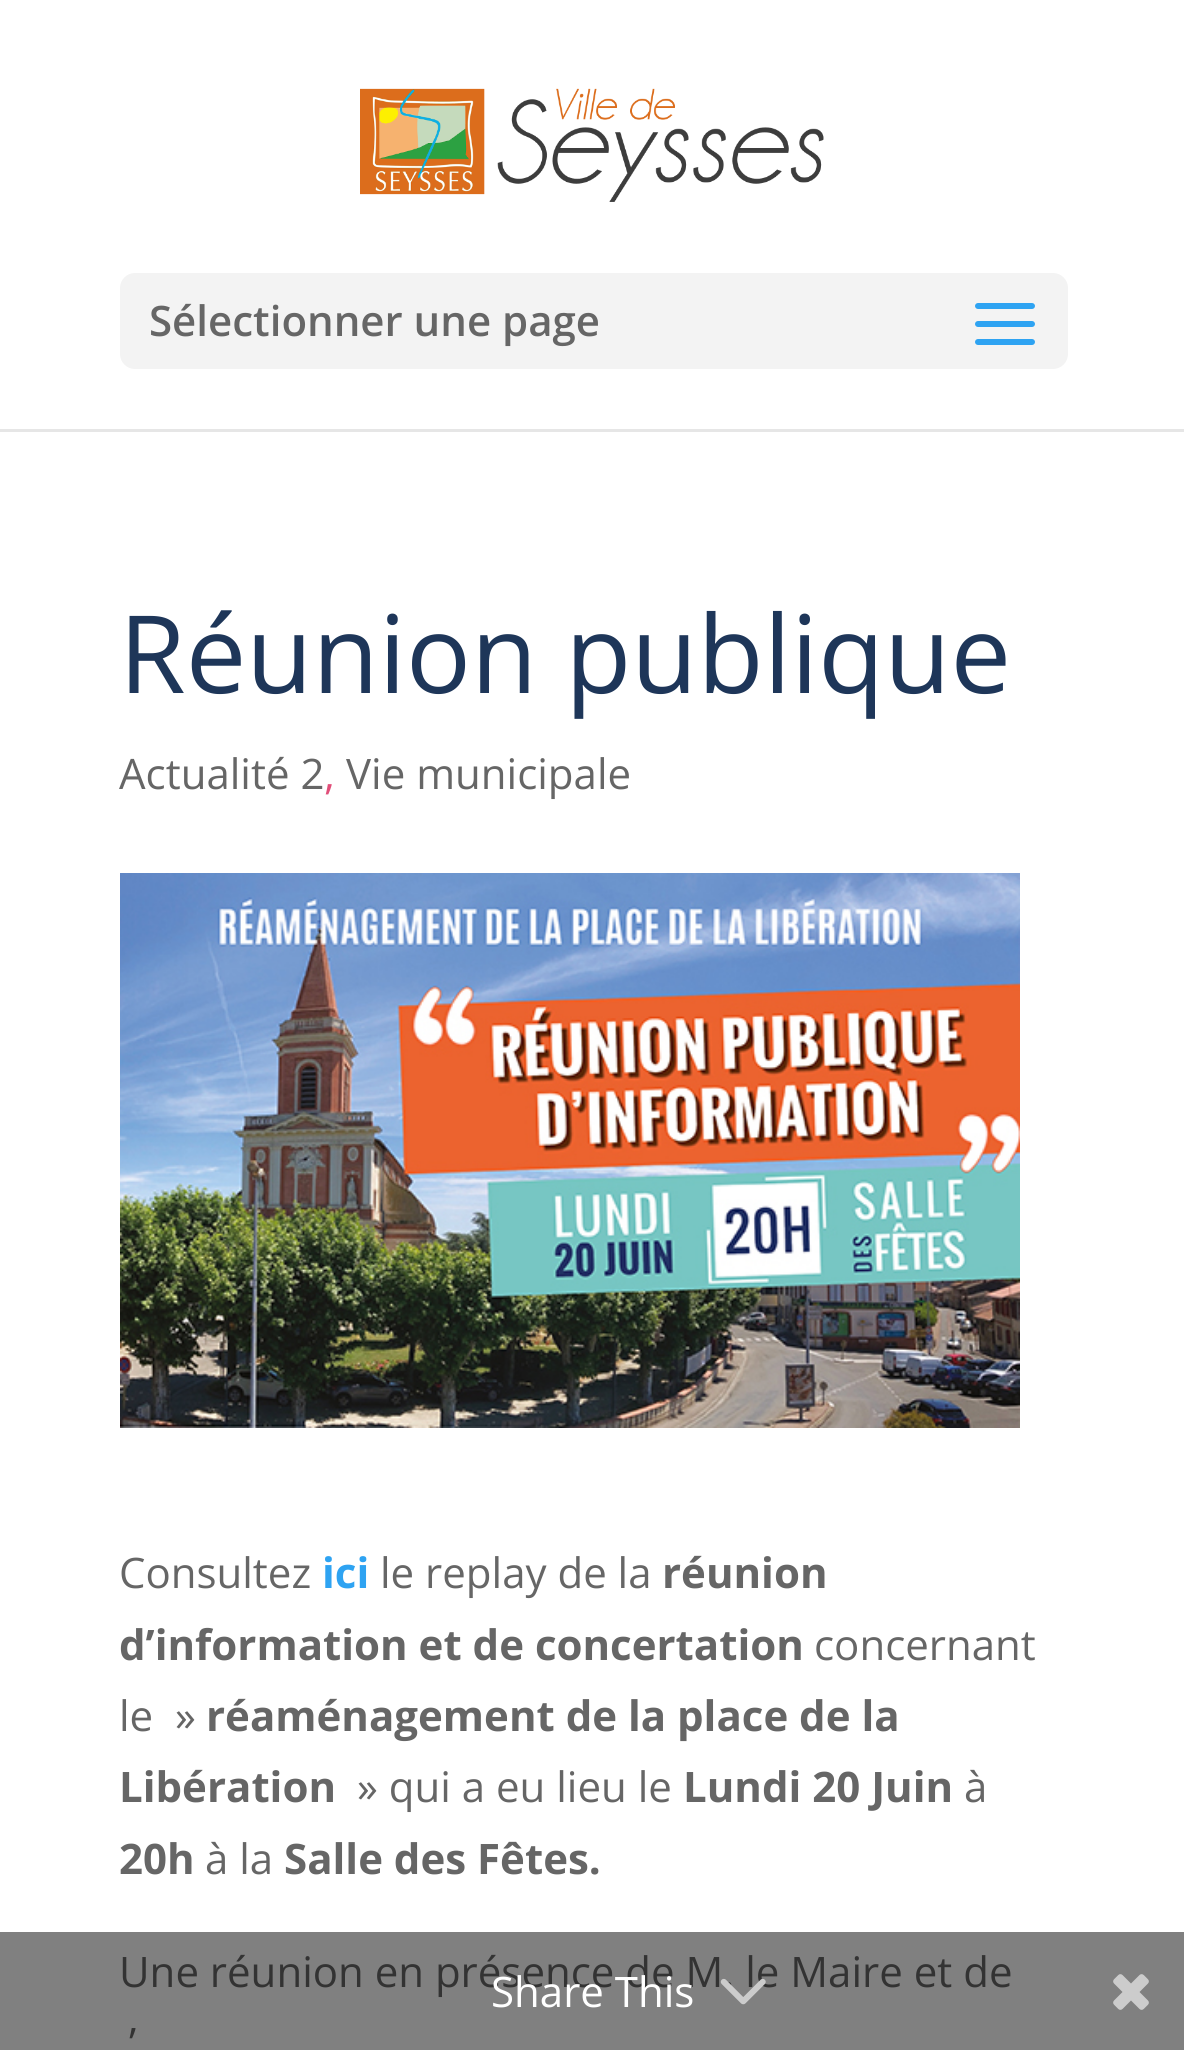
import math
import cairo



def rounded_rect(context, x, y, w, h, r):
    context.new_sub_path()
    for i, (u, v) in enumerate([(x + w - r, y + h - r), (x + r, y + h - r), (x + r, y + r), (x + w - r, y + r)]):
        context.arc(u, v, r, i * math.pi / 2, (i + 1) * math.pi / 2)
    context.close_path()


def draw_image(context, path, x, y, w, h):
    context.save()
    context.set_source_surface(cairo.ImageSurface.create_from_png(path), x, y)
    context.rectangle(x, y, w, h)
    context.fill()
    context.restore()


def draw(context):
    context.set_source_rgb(1, 1, 1)
    context.paint()
    context.set_source_rgb(128 / 255, 128 / 255, 128 / 255)
    context.rectangle(0, 1932, 1184, 118)
    context.fill()
    context.set_source_rgb(230 / 255, 230 / 255, 230 / 255)
    context.rectangle(0, 429, 1184, 3)
    context.fill()
    draw_image(context, "images/1.png", 360, 88, 464, 114)
    context.set_source_rgb(243 / 255, 243 / 255, 243 / 255)
    rounded_rect(context, 120, 273, 948, 96, 15)
    context.fill()
    draw_image(context, "images/2.png", 975, 303, 60, 42)
    draw_image(context, "images/3.png", 120, 873, 900, 555)
    draw_image(context, "images/5.png", 1113, 1974, 36, 36)
    context.select_font_face("Open Sans SemiBold")
    context.set_font_size(42)
    context.set_source_rgb(102 / 255, 102 / 255, 102 / 255)
    context.move_to(149, 336)
    context.show_text("Sélectionner une page")
    context.select_font_face("Open Sans")
    context.set_font_size(108)
    context.set_source_rgb(30 / 255, 54 / 255, 89 / 255)
    context.move_to(119, 693)
    context.show_text("Réunion publique")
    context.set_font_size(42)
    context.set_source_rgb(102 / 255, 102 / 255, 102 / 255)
    context.move_to(119, 789)
    context.show_text("Actualité 2")
    context.set_source_rgb(225 / 255, 78 / 255, 121 / 255)
    context.move_to(324, 789)
    context.show_text(",")
    context.set_source_rgb(102 / 255, 102 / 255, 102 / 255)
    context.move_to(346, 789)
    context.show_text("Vie municipale")
    context.move_to(119, 1588)
    context.show_text("Consultez")
    context.select_font_face("Open Sans", cairo.FontSlant.NORMAL, cairo.FontWeight.BOLD)
    context.set_source_rgb(46 / 255, 163 / 255, 242 / 255)
    context.move_to(322, 1588)
    context.show_text("ici")
    context.select_font_face("Open Sans")
    context.set_source_rgb(102 / 255, 102 / 255, 102 / 255)
    context.move_to(380, 1588)
    context.show_text("le replay de la")
    context.select_font_face("Open Sans", cairo.FontSlant.NORMAL, cairo.FontWeight.BOLD)
    context.move_to(662, 1588)
    context.show_text("réunion")
    context.move_to(119, 1660)
    context.show_text("d’information et de concertation")
    context.select_font_face("Open Sans")
    context.move_to(814, 1660)
    context.show_text("concernant")
    context.move_to(119, 1731)
    context.show_text("le  »")
    context.select_font_face("Open Sans", cairo.FontSlant.NORMAL, cairo.FontWeight.BOLD)
    context.move_to(206, 1731)
    context.show_text("réaménagement de la place de la")
    context.move_to(119, 1802)
    context.show_text("Libération")
    context.select_font_face("Open Sans")
    context.move_to(357, 1802)
    context.show_text("» qui a eu lieu le")
    context.select_font_face("Open Sans", cairo.FontSlant.NORMAL, cairo.FontWeight.BOLD)
    context.move_to(683, 1802)
    context.show_text("Lundi 20 Juin")
    context.select_font_face("Open Sans")
    context.move_to(964, 1802)
    context.show_text("à")
    context.select_font_face("Open Sans", cairo.FontSlant.NORMAL, cairo.FontWeight.BOLD)
    context.move_to(119, 1874)
    context.show_text("20h")
    context.select_font_face("Open Sans")
    context.move_to(205, 1874)
    context.show_text("à la")
    context.select_font_face("Open Sans", cairo.FontSlant.NORMAL, cairo.FontWeight.BOLD)
    context.move_to(284, 1874)
    context.show_text("Salle des Fêtes.")
    context.select_font_face("Open Sans")
    context.set_source_rgb(51 / 255, 51 / 255, 51 / 255)
    context.move_to(119, 1987)
    context.show_text("Une réunion en présence de M. le Maire et de")
    context.move_to(129, 2058)
    context.show_text("’")
    context.set_source_rgb(1, 1, 1)
    context.move_to(491, 2007)
    context.show_text("Share This")
    draw_image(context, "images/4.png", 720, 1978, 46, 27)


surface = cairo.ImageSurface(cairo.Format.RGB24, 1184, 2050)
context = cairo.Context(surface)
options = cairo.FontOptions()
options.set_hint_metrics(cairo.HintMetrics.OFF)
options.set_hint_style(cairo.HintStyle.NONE)
context.set_font_options(options)
context.set_miter_limit(4)
draw(context)
surface.write_to_png("out.png")
